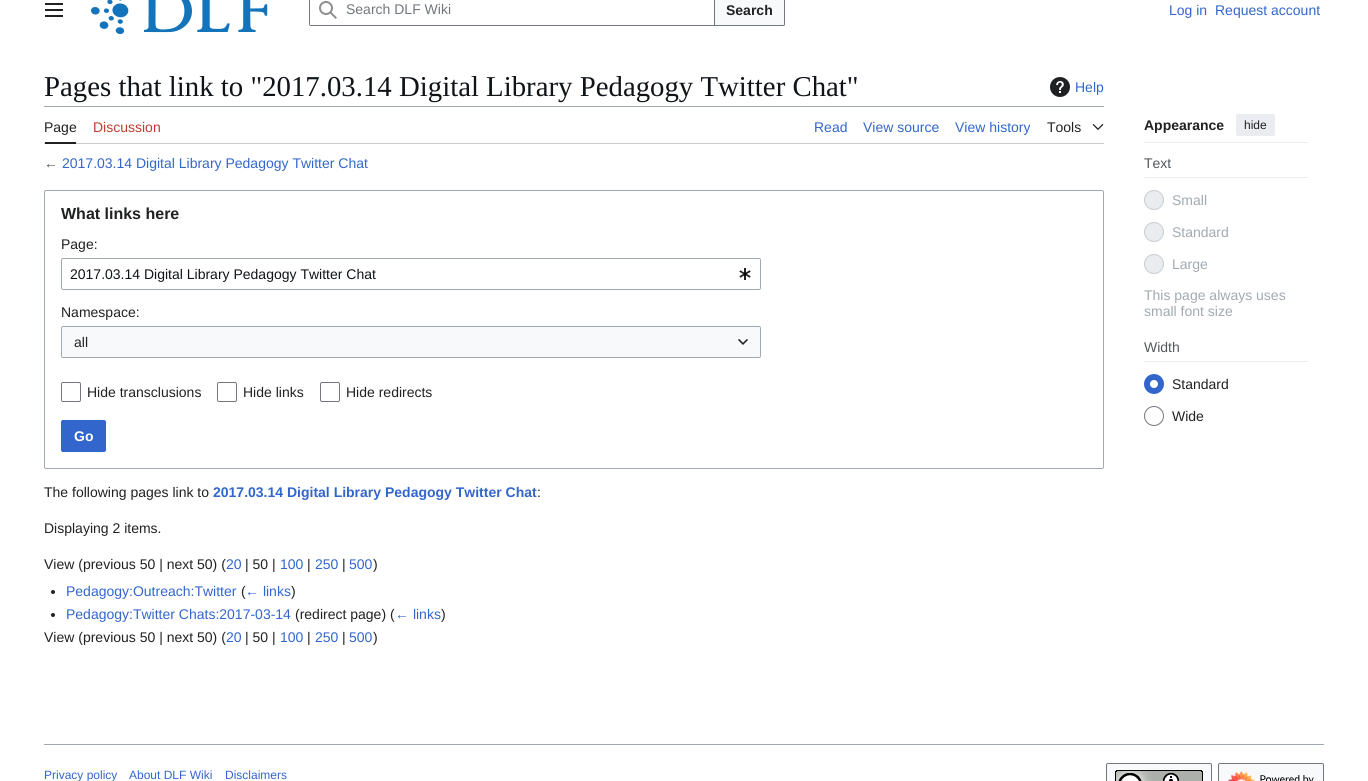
import math
import cairo



def rounded_rect(context, x, y, w, h, r):
    context.new_sub_path()
    for i, (u, v) in enumerate([(x + w - r, y + h - r), (x + r, y + h - r), (x + r, y + r), (x + w - r, y + r)]):
        context.arc(u, v, r, i * math.pi / 2, (i + 1) * math.pi / 2)
    context.close_path()


def draw_image(context, path, x, y, w, h):
    context.save()
    context.set_source_surface(cairo.ImageSurface.create_from_png(path), x, y)
    context.rectangle(x, y, w, h)
    context.fill()
    context.restore()


def draw(context):
    context.set_source_rgb(1, 1, 1)
    context.paint()
    draw_image(context, "images/1.png", 45, 3, 18, 14)
    draw_image(context, "images/2.png", 91, 0, 38, 35)
    draw_image(context, "images/3.png", 144, 0, 124, 33)
    rounded_rect(context, 309.5, -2.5, 475, 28, 1.5)
    context.set_source_rgb(162 / 255, 169 / 255, 177 / 255)
    context.set_line_width(1)
    context.stroke()
    context.set_source_rgb(248 / 255, 249 / 255, 250 / 255)
    context.new_path()
    context.move_to(714.5, -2.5)
    context.line_to(783, -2.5)
    context.curve_to(784, -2.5, 784.5, -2, 784.5, -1)
    context.line_to(784.5, 24)
    context.curve_to(784.5, 25, 784, 25.5, 783, 25.5)
    context.line_to(714.5, 25.5)
    context.close_path()
    context.fill_preserve()
    context.set_source_rgb(114 / 255, 119 / 255, 125 / 255)
    context.stroke()
    context.set_source_rgb(1, 1, 1)
    context.new_path()
    context.move_to(311, -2)
    context.line_to(715, -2)
    context.line_to(715, 26)
    context.line_to(311, 26)
    context.curve_to(310, 26, 309, 25, 309, 24)
    context.line_to(309, 0)
    context.curve_to(309, -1, 310, -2, 311, -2)
    context.close_path()
    context.fill()
    context.set_source_rgb(114 / 255, 119 / 255, 125 / 255)
    context.set_fill_rule(cairo.FillRule.EVEN_ODD)
    context.new_path()
    context.move_to(311, -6)
    context.curve_to(310, -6, 309, -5, 309, -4)
    context.line_to(309, 24)
    context.curve_to(309, 25, 310, 26, 311, 26)
    context.line_to(715, 26)
    context.line_to(715, -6)
    context.close_path()
    context.move_to(310, -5)
    context.line_to(310, 25)
    context.line_to(714, 25)
    context.line_to(714, -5)
    context.close_path()
    context.fill()
    draw_image(context, "images/4.png", 319, 1, 18, 18)
    draw_image(context, "images/5.png", 1050, 77, 20, 20)
    context.set_source_rgb(162 / 255, 169 / 255, 177 / 255)
    context.rectangle(44, 106, 1060, 1)
    context.fill()
    context.set_source_rgb(200 / 255, 204 / 255, 209 / 255)
    context.rectangle(44, 143, 1060, 1)
    context.fill()
    context.set_source_rgb(32 / 255, 33 / 255, 34 / 255)
    context.rectangle(45, 142, 31, 2)
    context.fill()
    draw_image(context, "images/6.png", 1092, 124, 12, 6)
    context.set_source_rgb(234 / 255, 236 / 255, 240 / 255)
    context.rectangle(1144, 142, 164, 1)
    context.fill()
    rounded_rect(context, 1236, 114, 39, 22, 2)
    context.fill()
    context.rectangle(1144, 177, 164, 1)
    context.fill()
    context.arc(1154, 200, 9.5, 0, 2 * math.pi)
    context.fill_preserve()
    context.set_source_rgb(200 / 255, 204 / 255, 209 / 255)
    context.stroke()
    context.set_source_rgb(234 / 255, 236 / 255, 240 / 255)
    context.arc(1154, 232, 9.5, 0, 2 * math.pi)
    context.fill_preserve()
    context.set_source_rgb(200 / 255, 204 / 255, 209 / 255)
    context.stroke()
    context.set_source_rgb(234 / 255, 236 / 255, 240 / 255)
    context.arc(1154, 264, 9.5, 0, 2 * math.pi)
    context.fill_preserve()
    context.set_source_rgb(200 / 255, 204 / 255, 209 / 255)
    context.stroke()
    context.set_source_rgb(234 / 255, 236 / 255, 240 / 255)
    context.rectangle(1144, 361, 164, 1)
    context.fill()
    context.arc(1154, 384, 7, 0, 2 * math.pi)
    context.set_source_rgb(51 / 255, 102 / 255, 204 / 255)
    context.set_line_width(6)
    context.stroke()
    context.arc(1154, 416, 9.5, 0, 2 * math.pi)
    context.set_source_rgb(114 / 255, 119 / 255, 125 / 255)
    context.set_line_width(1)
    context.stroke()
    rounded_rect(context, 44.5, 190.5, 1059, 278, 1.5)
    context.set_source_rgb(162 / 255, 169 / 255, 177 / 255)
    context.stroke()
    rounded_rect(context, 61.5, 258.5, 699, 31, 1.5)
    context.stroke()
    draw_image(context, "images/7.png", 739, 268, 12, 12)
    context.set_source_rgb(248 / 255, 249 / 255, 250 / 255)
    context.rectangle(61, 326, 700, 32)
    context.fill()
    rounded_rect(context, 61.5, 326.5, 699, 31, 1.5)
    context.set_source_rgb(162 / 255, 169 / 255, 177 / 255)
    context.stroke()
    draw_image(context, "images/8.png", 738, 339, 10, 6)
    rounded_rect(context, 61.5, 382.5, 19, 19, 1.5)
    context.set_source_rgb(114 / 255, 119 / 255, 125 / 255)
    context.stroke()
    rounded_rect(context, 217.5, 382.5, 19, 19, 1.5)
    context.stroke()
    rounded_rect(context, 320.5, 382.5, 19, 19, 1.5)
    context.stroke()
    context.set_source_rgb(51 / 255, 102 / 255, 204 / 255)
    rounded_rect(context, 61.5, 420.5, 44, 31, 1.5)
    context.fill_preserve()
    context.stroke()
    context.set_source_rgb(32 / 255, 33 / 255, 34 / 255)
    context.arc(53, 592, 2, 0, 2 * math.pi)
    context.fill()
    context.arc(53, 615, 2, 0, 2 * math.pi)
    context.fill()
    context.set_source_rgb(162 / 255, 169 / 255, 177 / 255)
    context.rectangle(44, 744, 1280, 1)
    context.fill()
    context.set_source_rgb(248 / 255, 249 / 255, 250 / 255)
    rounded_rect(context, 1106.5, 763.5, 105, 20, 1.5)
    context.fill_preserve()
    context.set_source_rgb(114 / 255, 119 / 255, 125 / 255)
    context.stroke()
    draw_image(context, "images/9.png", 1115, 770, 88, 11)
    context.set_source_rgb(248 / 255, 249 / 255, 250 / 255)
    rounded_rect(context, 1218.5, 763.5, 105, 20, 1.5)
    context.fill_preserve()
    context.set_source_rgb(114 / 255, 119 / 255, 125 / 255)
    context.stroke()
    draw_image(context, "images/10.png", 1228, 771, 86, 10)
    context.select_font_face("Liberation Sans")
    context.set_font_size(14)
    context.move_to(346, 14)
    context.show_text("Search DLF Wiki")
    context.select_font_face("Liberation Sans", cairo.FontSlant.NORMAL, cairo.FontWeight.BOLD)
    context.set_source_rgb(32 / 255, 33 / 255, 34 / 255)
    context.move_to(726, 15)
    context.show_text("Search")
    context.select_font_face("Liberation Sans")
    context.set_source_rgb(51 / 255, 102 / 255, 204 / 255)
    context.move_to(1169, 15)
    context.show_text("Log in")
    context.move_to(1215, 15)
    context.show_text("Request account")
    context.select_font_face("Liberation Serif")
    context.set_font_size(28.8)
    context.set_source_rgb(16 / 255, 20 / 255, 24 / 255)
    context.move_to(44, 96)
    context.show_text("Pages that link to \"2017.03.14 Digital Library Pedagogy Twitter Chat\"")
    context.select_font_face("Liberation Sans")
    context.set_font_size(14)
    context.set_source_rgb(51 / 255, 102 / 255, 204 / 255)
    context.move_to(1075, 92)
    context.show_text("Help")
    context.set_source_rgb(32 / 255, 33 / 255, 34 / 255)
    context.move_to(44, 132)
    context.show_text("Page")
    context.set_source_rgb(191 / 255, 60 / 255, 44 / 255)
    context.move_to(93, 132)
    context.show_text("Discussion")
    context.set_source_rgb(51 / 255, 102 / 255, 204 / 255)
    context.move_to(814, 132)
    context.show_text("Read")
    context.move_to(863, 132)
    context.show_text("View source")
    context.move_to(955, 132)
    context.show_text("View history")
    context.set_source_rgb(32 / 255, 33 / 255, 34 / 255)
    context.move_to(1047, 132)
    context.show_text("Tools")
    context.select_font_face("Liberation Sans", cairo.FontSlant.NORMAL, cairo.FontWeight.BOLD)
    context.move_to(1144, 130)
    context.show_text("Appearance")
    context.select_font_face("Liberation Sans")
    context.set_font_size(12)
    context.move_to(1244, 129)
    context.show_text("hide")
    context.set_font_size(14)
    context.set_source_rgb(84 / 255, 89 / 255, 93 / 255)
    context.move_to(1144, 168)
    context.show_text("Text")
    context.set_source_rgb(162 / 255, 169 / 255, 177 / 255)
    context.move_to(1172, 205)
    context.show_text("Small")
    context.move_to(1172, 237)
    context.show_text("Standard")
    context.move_to(1172, 269)
    context.show_text("Large")
    context.move_to(1144, 300)
    context.show_text("This page always uses")
    context.move_to(1144, 316)
    context.show_text("small font size")
    context.set_source_rgb(84 / 255, 89 / 255, 93 / 255)
    context.move_to(1144, 352)
    context.show_text("Width")
    context.set_source_rgb(32 / 255, 33 / 255, 34 / 255)
    context.move_to(1172, 389)
    context.show_text("Standard")
    context.move_to(1172, 421)
    context.show_text("Wide")
    context.set_source_rgb(84 / 255, 89 / 255, 93 / 255)
    context.move_to(44, 168)
    context.show_text("←")
    context.set_source_rgb(51 / 255, 102 / 255, 204 / 255)
    context.move_to(62, 168)
    context.show_text("2017.03.14 Digital Library Pedagogy Twitter Chat")
    context.select_font_face("Liberation Sans", cairo.FontSlant.NORMAL, cairo.FontWeight.BOLD)
    context.set_font_size(16)
    context.set_source_rgb(32 / 255, 33 / 255, 34 / 255)
    context.move_to(61, 219)
    context.show_text("What links here")
    context.select_font_face("Liberation Sans")
    context.set_font_size(14)
    context.move_to(61, 249)
    context.show_text("Page:")
    context.set_source_rgb(16 / 255, 20 / 255, 24 / 255)
    context.move_to(70, 279)
    context.show_text("2017.03.14 Digital Library Pedagogy Twitter Chat")
    context.set_source_rgb(32 / 255, 33 / 255, 34 / 255)
    context.move_to(61, 317)
    context.show_text("Namespace:")
    context.move_to(74, 347)
    context.show_text("all")
    context.move_to(87, 397)
    context.show_text("Hide transclusions")
    context.move_to(243, 397)
    context.show_text("Hide links")
    context.move_to(346, 397)
    context.show_text("Hide redirects")
    context.select_font_face("Liberation Sans", cairo.FontSlant.NORMAL, cairo.FontWeight.BOLD)
    context.set_source_rgb(1, 1, 1)
    context.move_to(74, 441)
    context.show_text("Go")
    context.select_font_face("Liberation Sans")
    context.set_source_rgb(32 / 255, 33 / 255, 34 / 255)
    context.move_to(44, 497)
    context.show_text("The following pages link to")
    context.select_font_face("Liberation Sans", cairo.FontSlant.NORMAL, cairo.FontWeight.BOLD)
    context.set_source_rgb(51 / 255, 102 / 255, 204 / 255)
    context.move_to(213, 497)
    context.show_text("2017.03.14 Digital Library Pedagogy Twitter Chat")
    context.select_font_face("Liberation Sans")
    context.set_source_rgb(32 / 255, 33 / 255, 34 / 255)
    context.move_to(537, 497)
    context.show_text(":")
    context.move_to(44, 533)
    context.show_text("Displaying 2 items.")
    context.move_to(44, 569)
    context.show_text("View (previous 50 | next 50) (")
    context.set_source_rgb(51 / 255, 102 / 255, 204 / 255)
    context.move_to(226, 569)
    context.show_text("20")
    context.set_source_rgb(32 / 255, 33 / 255, 34 / 255)
    context.move_to(245, 569)
    context.show_text("| 50 |")
    context.set_source_rgb(51 / 255, 102 / 255, 204 / 255)
    context.move_to(280, 569)
    context.show_text("100")
    context.set_source_rgb(32 / 255, 33 / 255, 34 / 255)
    context.move_to(307, 569)
    context.show_text("|")
    context.set_source_rgb(51 / 255, 102 / 255, 204 / 255)
    context.move_to(315, 569)
    context.show_text("250")
    context.set_source_rgb(32 / 255, 33 / 255, 34 / 255)
    context.move_to(342, 569)
    context.show_text("|")
    context.set_source_rgb(51 / 255, 102 / 255, 204 / 255)
    context.move_to(349, 569)
    context.show_text("500")
    context.set_source_rgb(32 / 255, 33 / 255, 34 / 255)
    context.move_to(373, 569)
    context.show_text(")")
    context.set_source_rgb(51 / 255, 102 / 255, 204 / 255)
    context.move_to(66, 596)
    context.show_text("Pedagogy:Outreach:Twitter")
    context.set_source_rgb(32 / 255, 33 / 255, 34 / 255)
    context.move_to(241, 596)
    context.show_text("(")
    context.set_source_rgb(51 / 255, 102 / 255, 204 / 255)
    context.move_to(245, 596)
    context.show_text("← links")
    context.set_source_rgb(32 / 255, 33 / 255, 34 / 255)
    context.move_to(291, 596)
    context.show_text(")")
    context.set_source_rgb(51 / 255, 102 / 255, 204 / 255)
    context.move_to(66, 619)
    context.show_text("Pedagogy:Twitter Chats:2017-03-14")
    context.set_source_rgb(32 / 255, 33 / 255, 34 / 255)
    context.move_to(295, 619)
    context.show_text("(redirect page) (")
    context.set_source_rgb(51 / 255, 102 / 255, 204 / 255)
    context.move_to(395, 619)
    context.show_text("← links")
    context.set_source_rgb(32 / 255, 33 / 255, 34 / 255)
    context.move_to(441, 619)
    context.show_text(")")
    context.move_to(44, 642)
    context.show_text("View (previous 50 | next 50) (")
    context.set_source_rgb(51 / 255, 102 / 255, 204 / 255)
    context.move_to(226, 642)
    context.show_text("20")
    context.set_source_rgb(32 / 255, 33 / 255, 34 / 255)
    context.move_to(245, 642)
    context.show_text("| 50 |")
    context.set_source_rgb(51 / 255, 102 / 255, 204 / 255)
    context.move_to(280, 642)
    context.show_text("100")
    context.set_source_rgb(32 / 255, 33 / 255, 34 / 255)
    context.move_to(307, 642)
    context.show_text("|")
    context.set_source_rgb(51 / 255, 102 / 255, 204 / 255)
    context.move_to(315, 642)
    context.show_text("250")
    context.set_source_rgb(32 / 255, 33 / 255, 34 / 255)
    context.move_to(342, 642)
    context.show_text("|")
    context.set_source_rgb(51 / 255, 102 / 255, 204 / 255)
    context.move_to(349, 642)
    context.show_text("500")
    context.set_source_rgb(32 / 255, 33 / 255, 34 / 255)
    context.move_to(373, 642)
    context.show_text(")")
    context.set_font_size(12)
    context.set_source_rgb(51 / 255, 102 / 255, 204 / 255)
    context.move_to(44, 779)
    context.show_text("Privacy policy")
    context.move_to(129, 779)
    context.show_text("About DLF Wiki")
    context.move_to(225, 779)
    context.show_text("Disclaimers")


surface = cairo.ImageSurface(cairo.Format.RGB24, 1368, 781)
context = cairo.Context(surface)
options = cairo.FontOptions()
options.set_hint_metrics(cairo.HintMetrics.OFF)
options.set_hint_style(cairo.HintStyle.NONE)
context.set_font_options(options)
context.set_miter_limit(4)
draw(context)
surface.write_to_png("out.png")
